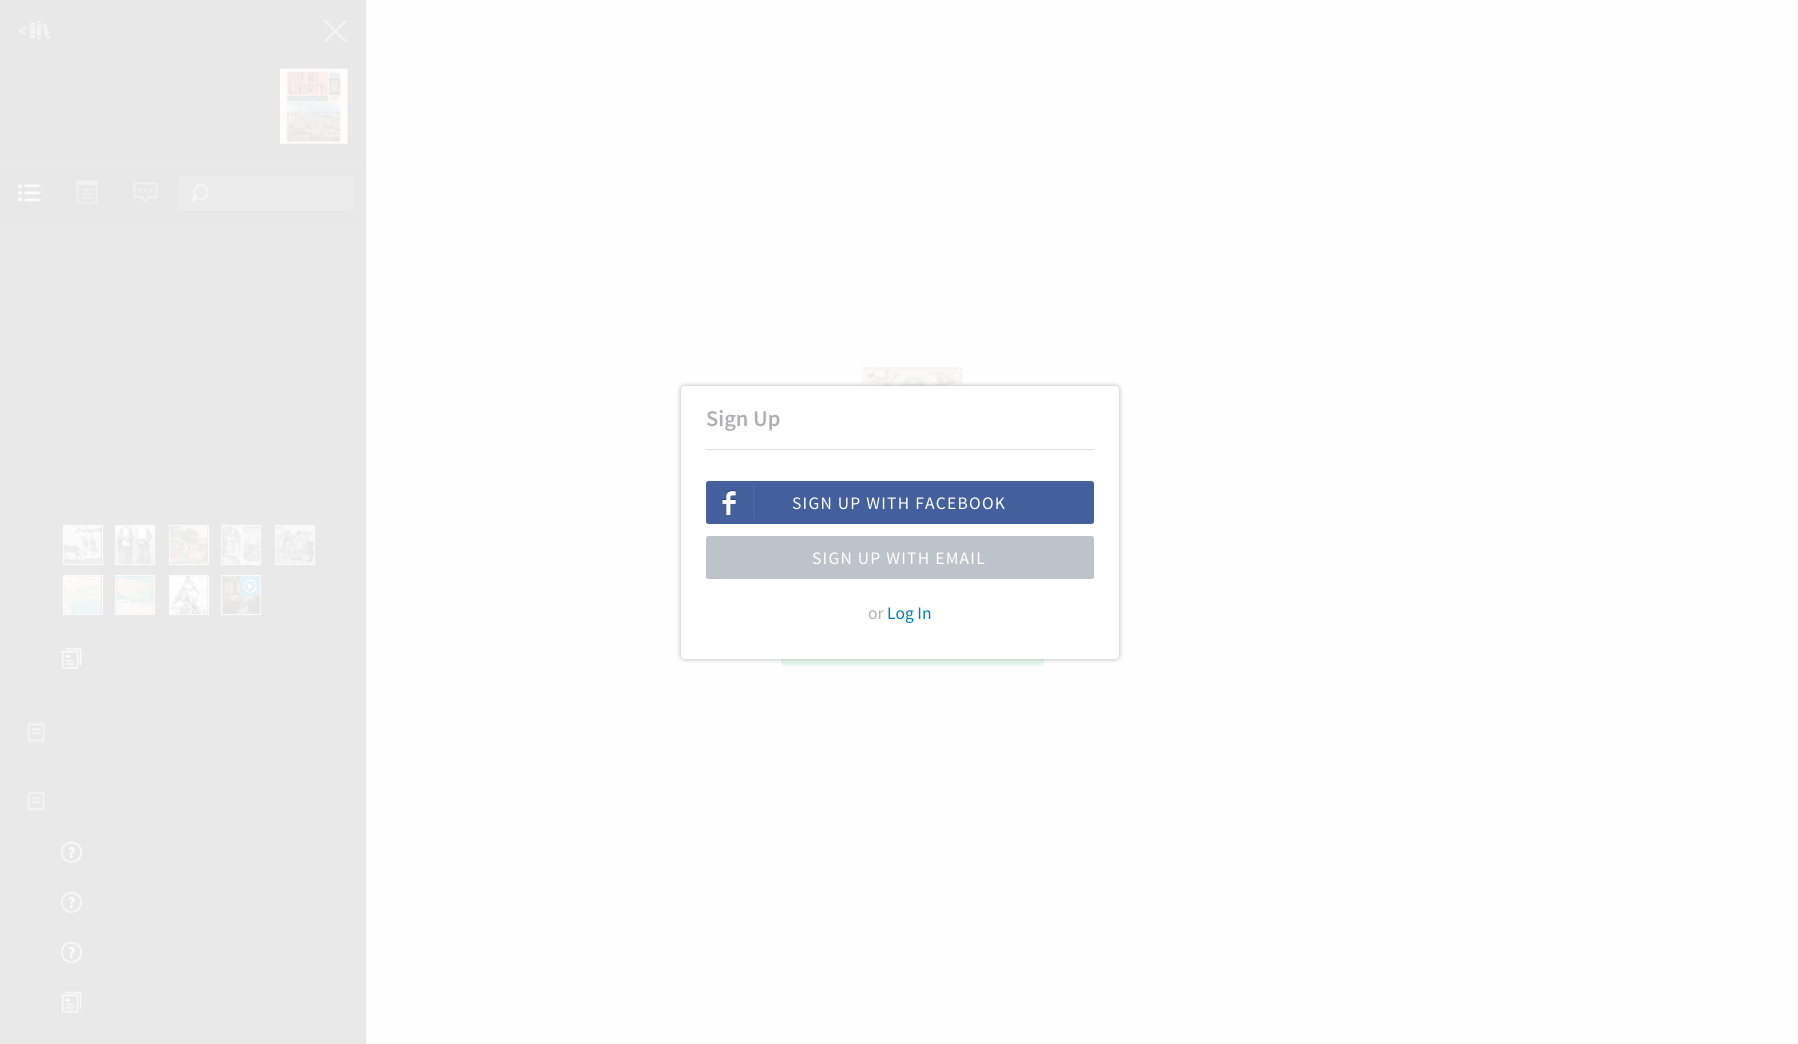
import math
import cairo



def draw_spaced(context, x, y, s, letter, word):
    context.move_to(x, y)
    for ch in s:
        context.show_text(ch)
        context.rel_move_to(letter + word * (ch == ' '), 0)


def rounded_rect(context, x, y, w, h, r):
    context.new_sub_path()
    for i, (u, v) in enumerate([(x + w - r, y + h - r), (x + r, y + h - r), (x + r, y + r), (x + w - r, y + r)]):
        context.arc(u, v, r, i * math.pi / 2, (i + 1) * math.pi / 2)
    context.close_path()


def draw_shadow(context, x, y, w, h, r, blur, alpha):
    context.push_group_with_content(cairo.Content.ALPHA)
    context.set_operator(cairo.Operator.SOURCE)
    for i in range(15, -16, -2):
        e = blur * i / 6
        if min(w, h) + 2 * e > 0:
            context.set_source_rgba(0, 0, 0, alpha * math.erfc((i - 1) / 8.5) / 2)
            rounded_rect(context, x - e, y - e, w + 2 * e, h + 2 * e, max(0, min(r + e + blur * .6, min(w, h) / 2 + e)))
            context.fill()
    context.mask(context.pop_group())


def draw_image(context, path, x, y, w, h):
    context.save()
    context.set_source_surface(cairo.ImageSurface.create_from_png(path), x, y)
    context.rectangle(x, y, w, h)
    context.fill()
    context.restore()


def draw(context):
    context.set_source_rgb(254 / 255, 254 / 255, 254 / 255)
    context.paint()
    context.set_source_rgb(234 / 255, 233 / 255, 234 / 255)
    context.rectangle(0, 224, 366, 820)
    context.fill()
    context.set_source_rgb(232 / 255, 232 / 255, 232 / 255)
    context.rectangle(0, 0, 366, 163)
    context.fill()
    draw_image(context, "images/1.png", 18, 21, 33, 18)
    draw_image(context, "images/2.png", 323, 19, 25, 24)
    draw_image(context, "images/3.png", 280, 68, 68, 76)
    context.rectangle(0, 164, 366, 60)
    context.fill()
    context.set_source_rgb(234 / 255, 234 / 255, 234 / 255)
    context.rectangle(0, 163, 366, 1)
    context.fill()
    draw_image(context, "images/4.png", 365, 0, 2, 1044)
    draw_image(context, "images/5.png", 17, 184, 25, 19)
    draw_image(context, "images/6.png", 76, 180, 22, 25)
    draw_image(context, "images/7.png", 132, 182, 27, 22)
    context.set_source_rgb(236 / 255, 236 / 255, 236 / 255)
    rounded_rect(context, 178, 176, 176, 35, 4)
    context.fill()
    draw_image(context, "images/8.png", 191, 184, 19, 19)
    context.rectangle(63.5, 525.5, 39, 39)
    context.set_source_rgb(252 / 255, 252 / 255, 253 / 255)
    context.set_line_width(1)
    context.stroke()
    draw_image(context, "images/9.png", 63, 526, 39, 38)
    context.rectangle(115.5, 525.5, 39, 39)
    context.stroke()
    draw_image(context, "images/10.png", 115, 526, 39, 38)
    context.rectangle(169.5, 525.5, 39, 39)
    context.stroke()
    draw_image(context, "images/11.png", 169, 526, 39, 38)
    context.rectangle(221.5, 525.5, 39, 39)
    context.stroke()
    draw_image(context, "images/12.png", 221, 526, 40, 38)
    context.rectangle(275.5, 525.5, 39, 39)
    context.stroke()
    draw_image(context, "images/13.png", 275, 526, 39, 38)
    context.rectangle(63.5, 575.5, 39, 39)
    context.stroke()
    draw_image(context, "images/14.png", 63, 576, 39, 38)
    context.rectangle(115.5, 575.5, 39, 39)
    context.stroke()
    draw_image(context, "images/15.png", 115, 576, 39, 38)
    context.rectangle(169.5, 575.5, 39, 39)
    context.stroke()
    draw_image(context, "images/16.png", 169, 576, 39, 38)
    context.rectangle(221.5, 575.5, 39, 39)
    context.stroke()
    draw_image(context, "images/17.png", 221, 576, 40, 38)
    context.set_source_rgb(230 / 255, 242 / 255, 248 / 255)
    context.rectangle(240, 576, 20, 20)
    context.fill()
    draw_image(context, "images/18.png", 243, 579, 14, 14)
    draw_image(context, "images/19.png", 61, 648, 21, 21)
    draw_image(context, "images/20.png", 28, 723, 17, 19)
    draw_image(context, "images/21.png", 28, 792, 17, 19)
    draw_image(context, "images/22.png", 61, 841, 22, 23)
    draw_image(context, "images/22.png", 61, 891, 22, 23)
    draw_image(context, "images/22.png", 61, 941, 22, 23)
    draw_image(context, "images/23.png", 61, 991, 21, 22)
    draw_image(context, "images/24.png", 862, 366, 101, 20)
    context.set_source_rgb(231 / 255, 247 / 255, 237 / 255)
    rounded_rect(context, 781, 623, 263, 43, 4)
    context.fill()
    context.set_source_rgb(0, 0, 0)
    draw_shadow(context, 681, 386, 438, 273, 4, 2.5, 0.3)
    context.set_source_rgb(1, 1, 1)
    rounded_rect(context, 681, 386, 438, 273, 4)
    context.fill()
    context.set_source_rgb(224 / 255, 224 / 255, 224 / 255)
    context.rectangle(706, 449, 388, 1)
    context.fill()
    context.set_source_rgb(67 / 255, 96 / 255, 156 / 255)
    rounded_rect(context, 706, 481, 388, 43, 2.5)
    context.fill()
    draw_image(context, "images/25.png", 722, 486, 34, 33)
    context.set_source_rgb(190 / 255, 195 / 255, 201 / 255)
    rounded_rect(context, 706, 536, 388, 43, 2.5)
    context.fill()
    context.select_font_face("Source Sans Pro SemiBold")
    context.set_font_size(22.5)
    context.set_source_rgb(176 / 255, 176 / 255, 178 / 255)
    context.move_to(706, 426)
    context.show_text("Sign Up")
    context.select_font_face("Source Sans Pro")
    context.set_font_size(17.5)
    context.set_source_rgb(1, 1, 1)
    draw_spaced(context, 792, 509, "SIGN UP WITH FACEBOOK", 1.25, 0)
    draw_spaced(context, 812, 564, "SIGN UP WITH EMAIL", 1.25, 0)
    context.set_source_rgb(176 / 255, 176 / 255, 178 / 255)
    context.move_to(868, 619)
    context.show_text("or")
    context.set_source_rgb(0, 124 / 255, 182 / 255)
    context.move_to(887, 619)
    context.show_text("Log In")


surface = cairo.ImageSurface(cairo.Format.RGB24, 1798, 1044)
context = cairo.Context(surface)
options = cairo.FontOptions()
options.set_hint_metrics(cairo.HintMetrics.OFF)
options.set_hint_style(cairo.HintStyle.NONE)
context.set_font_options(options)
context.set_miter_limit(4)
draw(context)
surface.write_to_png("out.png")
